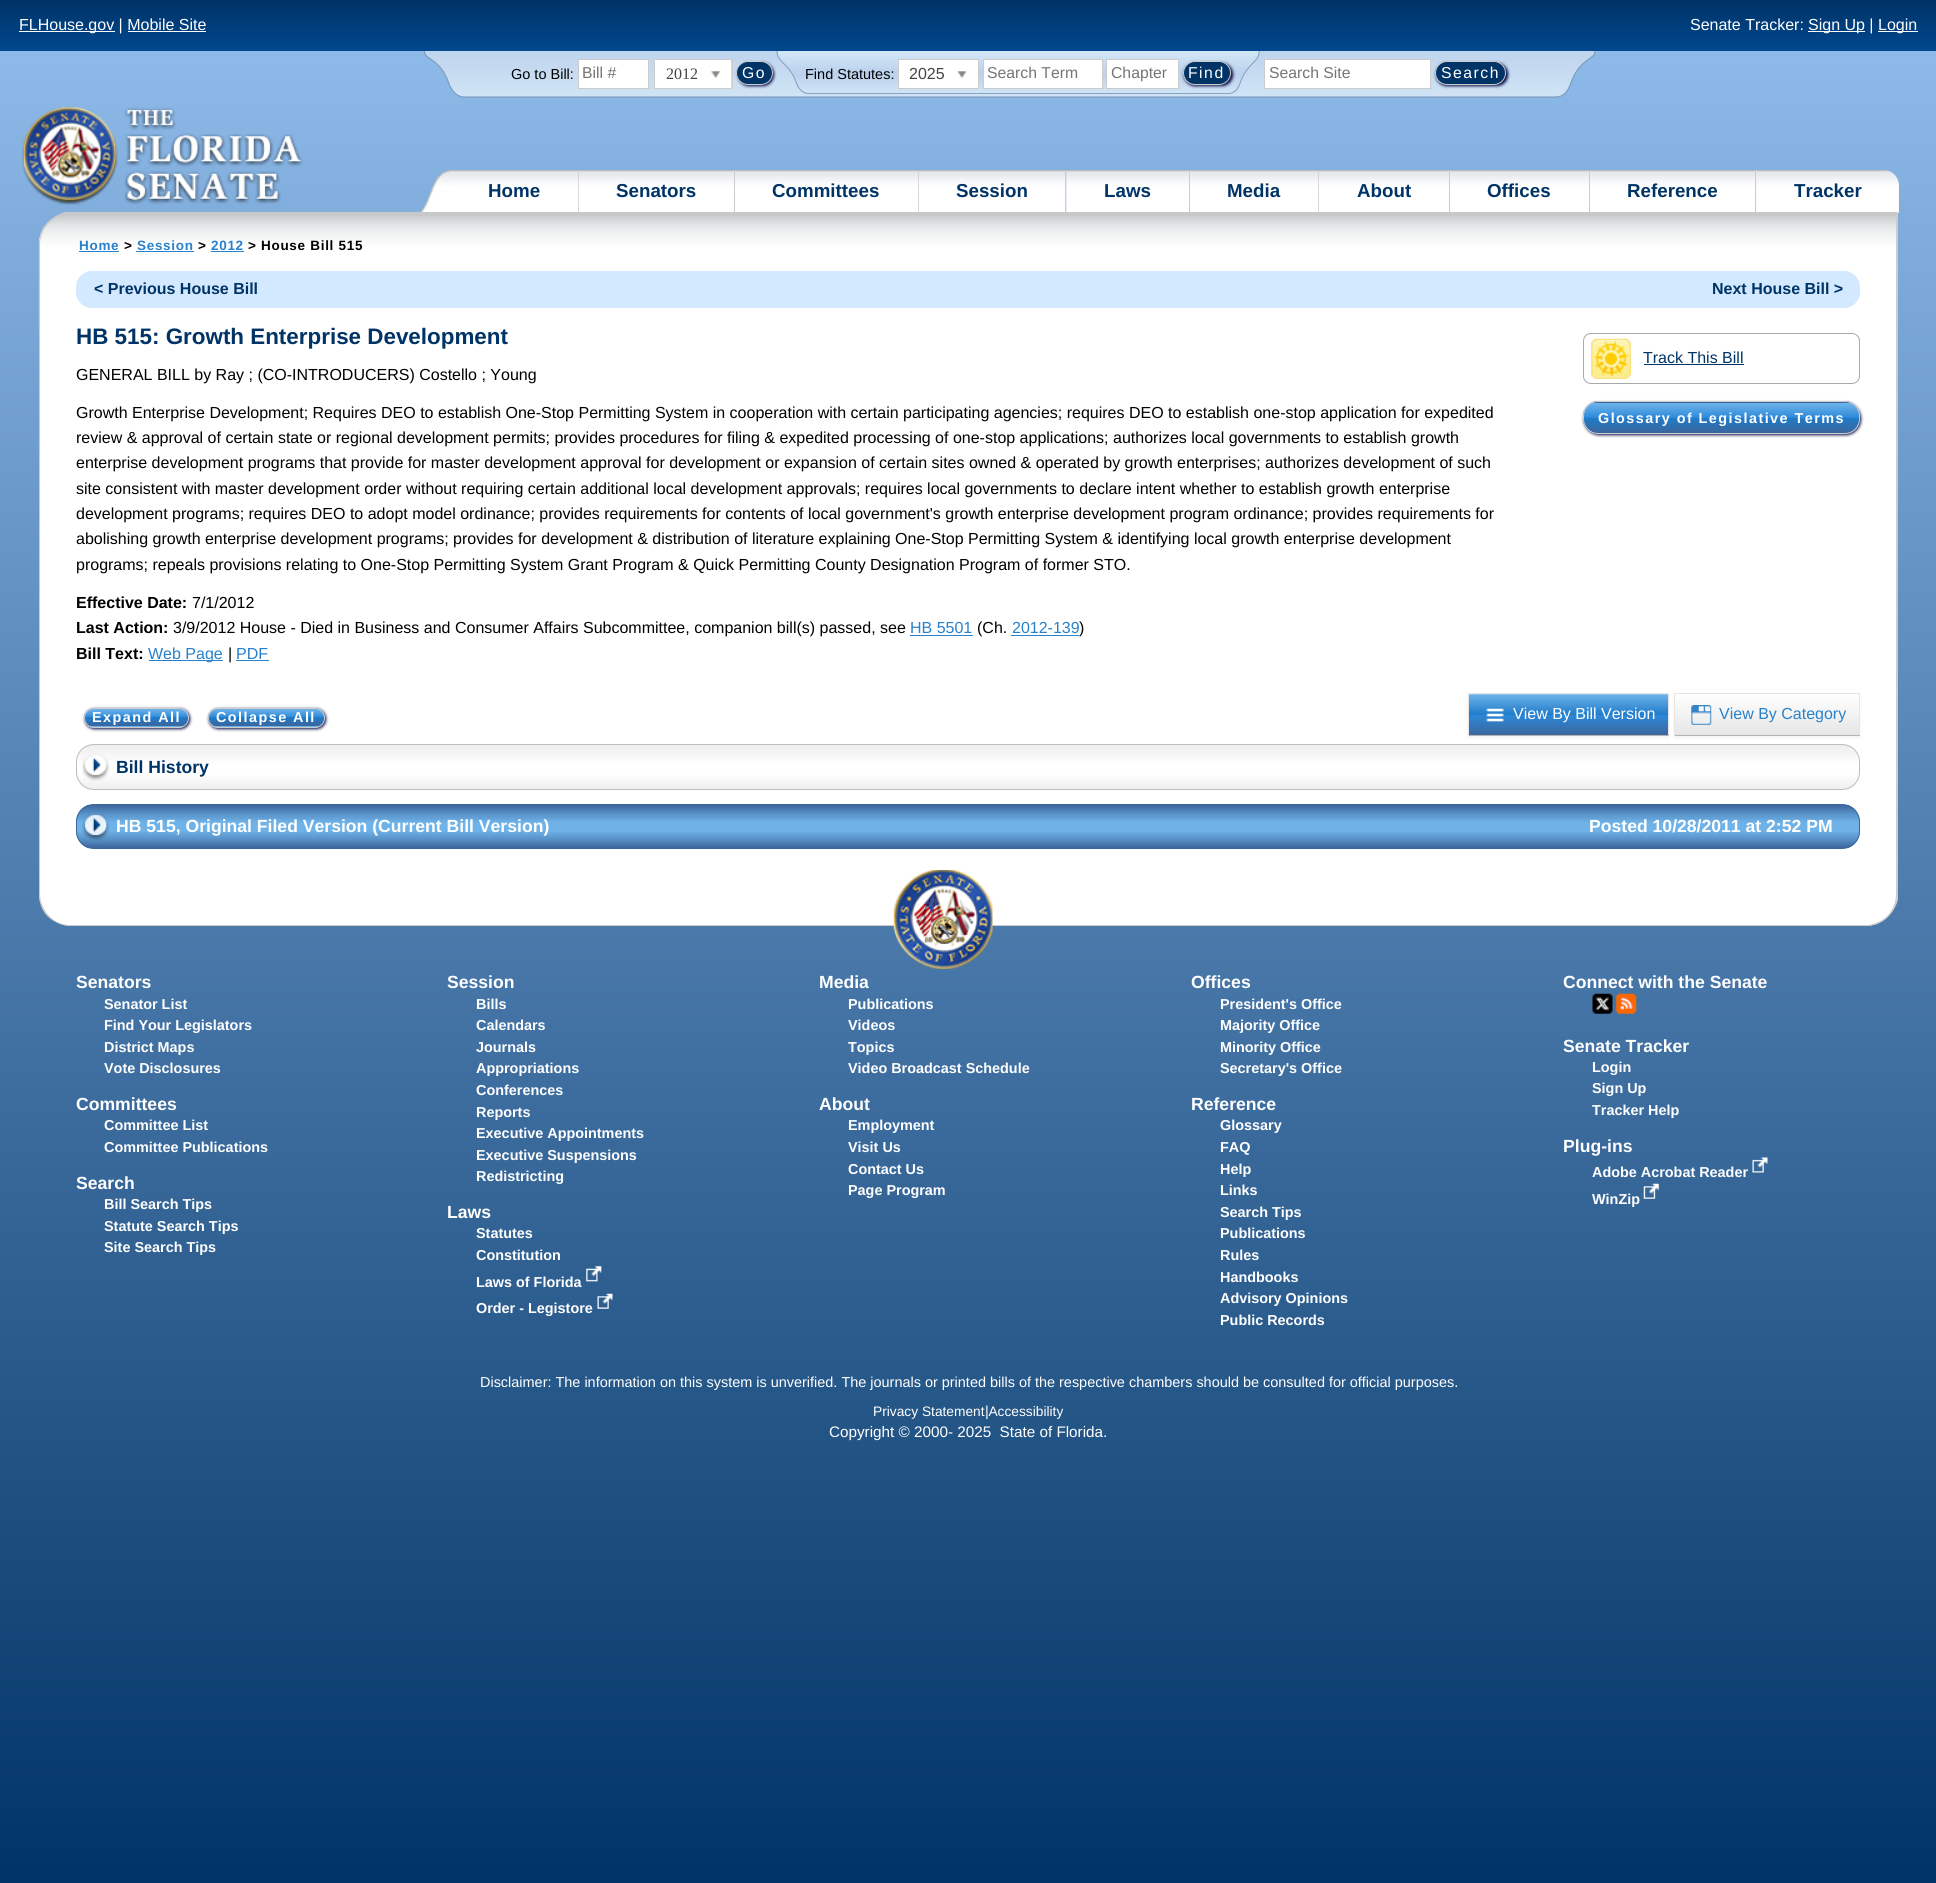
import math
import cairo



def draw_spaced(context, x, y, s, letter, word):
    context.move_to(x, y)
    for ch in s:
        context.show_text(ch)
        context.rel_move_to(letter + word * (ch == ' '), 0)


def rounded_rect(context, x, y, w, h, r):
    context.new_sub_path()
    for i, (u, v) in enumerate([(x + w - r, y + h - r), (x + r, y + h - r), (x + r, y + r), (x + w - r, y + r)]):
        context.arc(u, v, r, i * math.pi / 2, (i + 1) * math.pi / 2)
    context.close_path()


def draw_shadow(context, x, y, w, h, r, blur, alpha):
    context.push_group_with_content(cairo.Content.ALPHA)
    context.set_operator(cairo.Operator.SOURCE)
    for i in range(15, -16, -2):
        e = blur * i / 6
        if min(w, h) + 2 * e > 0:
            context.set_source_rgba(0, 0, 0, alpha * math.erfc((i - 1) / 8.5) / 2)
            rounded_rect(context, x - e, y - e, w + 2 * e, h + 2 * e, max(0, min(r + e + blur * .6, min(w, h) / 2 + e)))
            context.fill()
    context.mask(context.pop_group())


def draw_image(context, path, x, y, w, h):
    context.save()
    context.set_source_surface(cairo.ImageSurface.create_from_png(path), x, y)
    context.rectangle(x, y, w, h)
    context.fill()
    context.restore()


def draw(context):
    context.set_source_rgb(1, 1, 1)
    context.paint()
    gradient = cairo.LinearGradient(968, 0, 968, 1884)
    gradient.add_color_stop_rgba(0.01, 144 / 255, 188 / 255, 235 / 255, 1)
    gradient.add_color_stop_rgba(1, 0, 51 / 255, 102 / 255, 1)
    context.set_source(gradient)
    context.rectangle(0, 51, 1936, 1832)
    context.fill()
    gradient = cairo.LinearGradient(968, 0, 968, 51)
    gradient.add_color_stop_rgba(0, 0, 51 / 255, 102 / 255, 1)
    gradient.add_color_stop_rgba(1, 0, 72 / 255, 143 / 255, 1)
    context.set_source(gradient)
    context.rectangle(0, 0, 1936, 51)
    context.fill()
    context.set_source_rgb(1, 1, 1)
    context.rectangle(19, 31, 96, 1)
    context.fill()
    context.rectangle(128, 31, 78, 1)
    context.fill()
    context.rectangle(1808, 31, 57, 1)
    context.fill()
    context.rectangle(1878, 31, 40, 1)
    context.fill()
    context.save()
    context.rectangle(421, 51, 1175, 55)
    context.clip()
    gradient = cairo.LinearGradient(1010, -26, 1010, 97)
    gradient.add_color_stop_rgba(0, 211 / 255, 231 / 255, 246 / 255, 1)
    gradient.add_color_stop_rgba(0.55, 186 / 255, 209 / 255, 236 / 255, 1)
    gradient.add_color_stop_rgba(0.59, 189 / 255, 211 / 255, 237 / 255, 1)
    gradient.add_color_stop_rgba(1, 208 / 255, 228 / 255, 245 / 255, 1)
    context.set_source(gradient)
    context.new_path()
    context.move_to(425, -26)
    context.line_to(425, 52)
    context.curve_to(424, 59, 440, 59, 449, 83)
    context.curve_to(451, 90, 457, 97, 464, 97)
    context.line_to(1556, 97)
    context.curve_to(1565, 97, 1568, 90, 1571, 83)
    context.curve_to(1579, 59, 1595, 59, 1595, 52)
    context.line_to(1595, -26)
    context.fill()
    context.new_path()
    context.move_to(424.5, -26.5)
    context.line_to(424.5, 52)
    context.curve_to(424.5, 59.5, 440.5, 59, 448.5, 82.5)
    context.curve_to(451, 90, 456.5, 97, 464, 97)
    context.line_to(1555.5, 97)
    context.curve_to(1564.5, 97, 1568.5, 90, 1571, 82.5)
    context.curve_to(1579.5, 59, 1595, 59, 1595, 52)
    context.line_to(1595, -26.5)
    context.set_source_rgb(122 / 255, 153 / 255, 187 / 255)
    context.set_line_width(1.1)
    context.stroke()
    context.restore()
    context.rectangle(578.5, 59.5, 70, 29)
    context.fill_preserve()
    context.set_source_rgb(204 / 255, 204 / 255, 204 / 255)
    context.set_line_width(1)
    context.stroke()
    context.set_source_rgb(1, 1, 1)
    context.rectangle(655, 60, 76, 28)
    context.fill()
    gradient = cairo.LinearGradient(1018, 51, 1018, 93)
    gradient.add_color_stop_rgba(0, 211 / 255, 231 / 255, 246 / 255, 1)
    gradient.add_color_stop_rgba(0.55, 186 / 255, 209 / 255, 236 / 255, 1)
    gradient.add_color_stop_rgba(0.59, 189 / 255, 211 / 255, 237 / 255, 1)
    gradient.add_color_stop_rgba(1, 208 / 255, 228 / 255, 245 / 255, 1)
    context.set_source(gradient)
    context.new_path()
    context.move_to(1259, 51)
    context.curve_to(1260, 62, 1247, 64, 1240, 82)
    context.curve_to(1238, 88, 1235, 93, 1228, 93)
    context.line_to(808, 93)
    context.curve_to(802, 93, 798, 88, 796, 82)
    context.curve_to(790, 64, 777, 63, 777, 51)
    context.fill()
    context.new_path()
    context.move_to(1259, 51)
    context.curve_to(1260, 61.5, 1247, 63.5, 1240.5, 82)
    context.curve_to(1238.5, 88, 1235.5, 93.5, 1228, 93.5)
    context.line_to(808, 93.5)
    context.curve_to(802.5, 93.5, 798, 88, 796, 82)
    context.curve_to(789.5, 63.5, 777, 62.5, 777, 51)
    context.set_source_rgb(122 / 255, 153 / 255, 187 / 255)
    context.set_line_width(0.9)
    context.stroke()
    context.set_source_rgb(4 / 255, 4 / 255, 67 / 255)
    draw_shadow(context, 738, 63, 36, 23, 11.5, 1.5, 1)
    context.rectangle(654.5, 59.5, 78, 29)
    context.set_source_rgb(204 / 255, 204 / 255, 204 / 255)
    context.set_line_width(1)
    context.stroke()
    draw_image(context, "images/1.png", 711, 71, 10, 8)
    context.set_source_rgb(0, 51 / 255, 102 / 255)
    rounded_rect(context, 736.5, 61.5, 36, 23, 11.5)
    context.fill_preserve()
    context.set_source_rgb(204 / 255, 204 / 255, 204 / 255)
    context.stroke()
    context.set_source_rgb(1, 1, 1)
    context.rectangle(898.5, 59.5, 80, 29)
    context.fill_preserve()
    context.set_source_rgb(204 / 255, 204 / 255, 204 / 255)
    context.stroke()
    draw_image(context, "images/2.png", 957, 71, 10, 7)
    context.set_source_rgb(1, 1, 1)
    context.rectangle(983.5, 59.5, 119, 29)
    context.fill_preserve()
    context.set_source_rgb(204 / 255, 204 / 255, 204 / 255)
    context.stroke()
    context.set_source_rgb(1, 1, 1)
    context.rectangle(1106.5, 59.5, 72, 29)
    context.fill_preserve()
    context.set_source_rgb(204 / 255, 204 / 255, 204 / 255)
    context.stroke()
    context.set_source_rgb(4 / 255, 4 / 255, 67 / 255)
    draw_shadow(context, 1184, 63, 49, 23, 11.5, 1.5, 1)
    context.set_source_rgb(0, 51 / 255, 102 / 255)
    rounded_rect(context, 1183.5, 61.5, 47, 23, 11.5)
    context.fill_preserve()
    context.set_source_rgb(204 / 255, 204 / 255, 204 / 255)
    context.stroke()
    context.set_source_rgb(1, 1, 1)
    context.rectangle(1264.5, 59.5, 166, 29)
    context.fill_preserve()
    context.set_source_rgb(204 / 255, 204 / 255, 204 / 255)
    context.stroke()
    context.set_source_rgb(4 / 255, 4 / 255, 67 / 255)
    draw_shadow(context, 1436, 63, 72, 23, 11.5, 1.5, 1)
    context.set_source_rgb(0, 51 / 255, 102 / 255)
    rounded_rect(context, 1435.5, 61.5, 70, 23, 11.5)
    context.fill_preserve()
    context.set_source_rgb(204 / 255, 204 / 255, 204 / 255)
    context.stroke()
    draw_image(context, "images/3.png", 22, 107, 281, 98)
    draw_image(context, "images/4.png", 420, 170, 30, 42)
    draw_image(context, "images/5.png", 450, 170, 128, 42)
    context.rectangle(578, 170, 1, 43)
    context.fill()
    draw_image(context, "images/6.png", 578, 170, 156, 42)
    context.rectangle(734, 170, 1, 43)
    context.fill()
    draw_image(context, "images/7.png", 735, 170, 183, 42)
    context.rectangle(918, 170, 1, 43)
    context.fill()
    draw_image(context, "images/8.png", 918, 170, 149, 42)
    context.rectangle(1065, 170, 1, 43)
    context.fill()
    draw_image(context, "images/9.png", 1066, 170, 123, 42)
    context.rectangle(1189, 170, 1, 43)
    context.fill()
    draw_image(context, "images/5.png", 1190, 170, 128, 42)
    context.rectangle(1318, 170, 1, 43)
    context.fill()
    draw_image(context, "images/10.png", 1318, 170, 131, 42)
    context.rectangle(1449, 170, 1, 43)
    context.fill()
    draw_image(context, "images/11.png", 1450, 170, 139, 42)
    context.rectangle(1589, 170, 1, 43)
    context.fill()
    draw_image(context, "images/12.png", 1590, 170, 165, 42)
    context.rectangle(1755, 170, 1, 43)
    context.fill()
    context.set_source_rgb(235 / 255, 235 / 255, 240 / 255)
    context.new_path()
    context.move_to(1756, 170)
    context.line_to(1883, 170)
    context.curve_to(1892, 170, 1899, 177, 1899, 186)
    context.line_to(1899, 213)
    context.line_to(1756, 213)
    context.close_path()
    context.fill()
    draw_image(context, "images/13.png", 1756, 170, 143, 43)
    context.set_source_rgb(1, 1, 1)
    context.new_path()
    context.move_to(72, 213)
    context.line_to(1898, 213)
    context.line_to(1898, 893)
    context.curve_to(1898, 911, 1883, 926, 1865, 926)
    context.line_to(72, 926)
    context.curve_to(54, 926, 39, 911, 39, 893)
    context.line_to(39, 246)
    context.curve_to(39, 228, 54, 213, 72, 213)
    context.close_path()
    context.fill()
    draw_image(context, "images/14.png", 38, 213, 1859, 120)
    context.set_source_rgb(200 / 255, 200 / 255, 200 / 255)
    context.new_path()
    context.move_to(71, 214)
    context.curve_to(63, 214, 55, 217, 49, 223)
    context.line_to(48, 222)
    context.curve_to(53, 217, 59, 214, 65, 212)
    context.line_to(1898, 212)
    context.line_to(1896, 214)
    context.close_path()
    context.fill()
    context.set_source_rgb(204 / 255, 204 / 255, 204 / 255)
    context.new_path()
    context.move_to(1898, 212)
    context.line_to(1898, 900)
    context.curve_to(1896, 906, 1893, 912, 1888, 917)
    context.line_to(1887, 916)
    context.curve_to(1893, 910, 1896, 902, 1896, 894)
    context.line_to(1896, 214)
    context.close_path()
    context.fill()
    context.new_path()
    context.move_to(1888, 917)
    context.curve_to(1882, 923, 1874, 926, 1866, 926)
    context.line_to(71, 926)
    context.curve_to(62, 926, 54, 922, 48, 917)
    context.line_to(49, 916)
    context.curve_to(55, 922, 62, 925, 71, 925)
    context.line_to(1866, 925)
    context.curve_to(1874, 925, 1882, 921, 1887, 916)
    context.close_path()
    context.fill()
    context.new_path()
    context.move_to(48, 917)
    context.curve_to(42, 911, 39, 903, 39, 894)
    context.line_to(39, 244)
    context.curve_to(39, 236, 42, 228, 48, 222)
    context.line_to(49, 223)
    context.curve_to(44, 228, 40, 236, 40, 244)
    context.line_to(40, 894)
    context.curve_to(40, 902, 44, 910, 49, 916)
    context.close_path()
    context.fill()
    context.set_source_rgb(40 / 255, 129 / 255, 204 / 255)
    context.rectangle(79, 251, 40, 1)
    context.fill()
    context.rectangle(136, 251, 58, 1)
    context.fill()
    context.rectangle(211, 251, 33, 1)
    context.fill()
    context.set_source_rgb(211 / 255, 233 / 255, 1)
    rounded_rect(context, 76.5, 271.5, 1783, 36, 15.5)
    context.fill_preserve()
    context.stroke()
    rounded_rect(context, 1583.5, 333.5, 276, 50, 7.5)
    context.set_source_rgb(169 / 255, 170 / 255, 171 / 255)
    context.stroke()
    draw_image(context, "images/15.png", 1591, 338, 40, 41)
    context.set_source_rgb(0, 51 / 255, 102 / 255)
    context.rectangle(1644, 364, 100, 1)
    context.fill()
    context.set_source_rgb(4 / 255, 4 / 255, 67 / 255)
    draw_shadow(context, 1584, 403, 277, 32, 15, 1.5, 1)
    context.save()
    rounded_rect(context, 1583, 401, 277, 33, 15)
    context.clip()
    gradient = cairo.LinearGradient(1584, 373, 1584, 403)
    gradient.add_color_stop_rgba(0, 111 / 255, 180 / 255, 234 / 255, 1)
    gradient.add_color_stop_rgba(0.5, 43 / 255, 137 / 255, 218 / 255, 1)
    gradient.add_color_stop_rgba(0.5, 31 / 255, 123 / 255, 202 / 255, 1)
    gradient.add_color_stop_rgba(1, 60 / 255, 102 / 255, 156 / 255, 1)
    context.set_source(gradient)
    context.rectangle(1583, 401, 277, 2)
    context.fill()
    gradient = cairo.LinearGradient(1584, 403, 1584, 433)
    gradient.add_color_stop_rgba(0, 111 / 255, 180 / 255, 234 / 255, 1)
    gradient.add_color_stop_rgba(0.5, 43 / 255, 137 / 255, 218 / 255, 1)
    gradient.add_color_stop_rgba(0.5, 31 / 255, 123 / 255, 202 / 255, 1)
    gradient.add_color_stop_rgba(1, 60 / 255, 102 / 255, 156 / 255, 1)
    context.set_source(gradient)
    context.rectangle(1583, 403, 277, 30)
    context.fill()
    context.restore()
    rounded_rect(context, 1583.5, 401.5, 276, 32, 14.5)
    context.set_source_rgb(204 / 255, 204 / 255, 204 / 255)
    context.stroke()
    context.set_source_rgb(40 / 255, 129 / 255, 204 / 255)
    context.rectangle(910, 635, 63, 1)
    context.fill()
    context.rectangle(1011, 635, 68, 1)
    context.fill()
    context.rectangle(149, 660, 74, 1)
    context.fill()
    context.rectangle(236, 660, 33, 1)
    context.fill()
    context.set_source_rgb(4 / 255, 4 / 255, 67 / 255)
    draw_shadow(context, 85, 709, 105, 20, 10, 1.5, 1)
    context.save()
    rounded_rect(context, 84, 708, 105, 20, 10)
    context.clip()
    gradient = cairo.LinearGradient(85, 709, 85, 726)
    gradient.add_color_stop_rgba(0, 111 / 255, 180 / 255, 234 / 255, 1)
    gradient.add_color_stop_rgba(0.5, 43 / 255, 137 / 255, 218 / 255, 1)
    gradient.add_color_stop_rgba(0.5, 31 / 255, 123 / 255, 202 / 255, 1)
    gradient.add_color_stop_rgba(1, 60 / 255, 102 / 255, 156 / 255, 1)
    context.set_source(gradient)
    context.rectangle(84, 709, 105, 17)
    context.fill()
    gradient = cairo.LinearGradient(85, 726, 85, 744)
    gradient.add_color_stop_rgba(0, 111 / 255, 180 / 255, 234 / 255, 1)
    gradient.add_color_stop_rgba(0.5, 43 / 255, 137 / 255, 218 / 255, 1)
    gradient.add_color_stop_rgba(0.5, 31 / 255, 123 / 255, 202 / 255, 1)
    gradient.add_color_stop_rgba(1, 60 / 255, 102 / 255, 156 / 255, 1)
    context.set_source(gradient)
    context.rectangle(84, 726, 105, 2)
    context.fill()
    context.restore()
    rounded_rect(context, 84.5, 708.5, 104, 19, 9.5)
    context.set_source_rgb(204 / 255, 204 / 255, 204 / 255)
    context.stroke()
    context.set_source_rgb(4 / 255, 4 / 255, 67 / 255)
    draw_shadow(context, 209, 709, 117, 20, 10, 1.5, 1)
    context.save()
    rounded_rect(context, 208, 708, 117, 20, 10)
    context.clip()
    gradient = cairo.LinearGradient(209, 709, 209, 726)
    gradient.add_color_stop_rgba(0, 111 / 255, 180 / 255, 234 / 255, 1)
    gradient.add_color_stop_rgba(0.5, 43 / 255, 137 / 255, 218 / 255, 1)
    gradient.add_color_stop_rgba(0.5, 31 / 255, 123 / 255, 202 / 255, 1)
    gradient.add_color_stop_rgba(1, 60 / 255, 102 / 255, 156 / 255, 1)
    context.set_source(gradient)
    context.rectangle(208, 709, 117, 17)
    context.fill()
    gradient = cairo.LinearGradient(209, 726, 209, 744)
    gradient.add_color_stop_rgba(0, 111 / 255, 180 / 255, 234 / 255, 1)
    gradient.add_color_stop_rgba(0.5, 43 / 255, 137 / 255, 218 / 255, 1)
    gradient.add_color_stop_rgba(0.5, 31 / 255, 123 / 255, 202 / 255, 1)
    gradient.add_color_stop_rgba(1, 60 / 255, 102 / 255, 156 / 255, 1)
    context.set_source(gradient)
    context.rectangle(208, 726, 117, 2)
    context.fill()
    context.restore()
    rounded_rect(context, 208.5, 708.5, 116, 19, 9.5)
    context.set_source_rgb(204 / 255, 204 / 255, 204 / 255)
    context.stroke()
    context.set_source_rgb(0, 0, 0)
    draw_shadow(context, 1468, 694, 201, 44, 0, 1.5, 0.05)
    gradient = cairo.LinearGradient(1568, 694, 1568, 735)
    gradient.add_color_stop_rgba(0, 111 / 255, 180 / 255, 234 / 255, 1)
    gradient.add_color_stop_rgba(0.51, 31 / 255, 123 / 255, 202 / 255, 1)
    gradient.add_color_stop_rgba(0.51, 43 / 255, 137 / 255, 218 / 255, 1)
    gradient.add_color_stop_rgba(1, 60 / 255, 102 / 255, 156 / 255, 1)
    context.set_source(gradient)
    context.rectangle(1469, 695, 199, 40)
    context.fill()
    context.set_source_rgb(138 / 255, 194 / 255, 237 / 255)
    context.rectangle(1469, 694, 199, 1)
    context.fill()
    context.set_source_rgb(230 / 255, 230 / 255, 230 / 255)
    context.rectangle(1468, 693, 201, 1)
    context.fill()
    context.rectangle(1668, 693, 1, 43)
    context.fill()
    context.set_source_rgb(179 / 255, 179 / 255, 179 / 255)
    context.rectangle(1468, 735, 201, 1)
    context.fill()
    context.set_source_rgb(230 / 255, 230 / 255, 230 / 255)
    context.rectangle(1468, 693, 1, 43)
    context.fill()
    draw_image(context, "images/16.png", 1486, 708, 18, 14)
    context.set_source_rgb(0, 0, 0)
    draw_shadow(context, 1674, 694, 186, 44, 0, 1.5, 0.05)
    gradient = cairo.LinearGradient(1767, 694, 1767, 735)
    gradient.add_color_stop_rgba(0, 1, 1, 1, 1)
    gradient.add_color_stop_rgba(1, 230 / 255, 230 / 255, 230 / 255, 1)
    context.set_source(gradient)
    context.rectangle(1675, 694, 184, 41)
    context.fill()
    context.set_source_rgb(230 / 255, 230 / 255, 230 / 255)
    context.rectangle(1674, 693, 186, 1)
    context.fill()
    context.rectangle(1859, 693, 1, 43)
    context.fill()
    context.set_source_rgb(179 / 255, 179 / 255, 179 / 255)
    context.rectangle(1674, 735, 186, 1)
    context.fill()
    context.set_source_rgb(230 / 255, 230 / 255, 230 / 255)
    context.rectangle(1674, 693, 1, 43)
    context.fill()
    draw_image(context, "images/17.png", 1691, 705, 21, 20)
    context.save()
    rounded_rect(context, 76, 744, 1784, 46, 18)
    context.clip()
    gradient = cairo.LinearGradient(968, 745, 968, 789)
    gradient.add_color_stop_rgba(0.01, 238 / 255, 238 / 255, 238 / 255, 1)
    gradient.add_color_stop_rgba(0.45, 1, 1, 1, 1)
    gradient.add_color_stop_rgba(0.65, 1, 1, 1, 1)
    gradient.add_color_stop_rgba(1, 238 / 255, 238 / 255, 238 / 255, 1)
    context.set_source(gradient)
    context.rectangle(76, 745, 1784, 44)
    context.fill()
    context.restore()
    rounded_rect(context, 76.5, 744.5, 1783, 45, 17.5)
    context.set_source_rgb(189 / 255, 189 / 255, 189 / 255)
    context.stroke()
    draw_image(context, "images/18.png", 82, 754, 28, 27)
    context.save()
    rounded_rect(context, 76, 804, 1784, 45, 18)
    context.clip()
    gradient = cairo.LinearGradient(968, 805, 968, 848)
    gradient.add_color_stop_rgba(0, 60 / 255, 102 / 255, 156 / 255, 1)
    gradient.add_color_stop_rgba(0.2, 87 / 255, 144 / 255, 198 / 255, 1)
    gradient.add_color_stop_rgba(0.4, 110 / 255, 178 / 255, 232 / 255, 1)
    gradient.add_color_stop_rgba(0.6, 110 / 255, 178 / 255, 232 / 255, 1)
    gradient.add_color_stop_rgba(0.8, 87 / 255, 144 / 255, 198 / 255, 1)
    gradient.add_color_stop_rgba(1, 60 / 255, 102 / 255, 156 / 255, 1)
    context.set_source(gradient)
    context.rectangle(76, 805, 1784, 43)
    context.fill()
    context.restore()
    rounded_rect(context, 76.5, 804.5, 1783, 44, 17.5)
    context.set_source_rgb(60 / 255, 102 / 255, 156 / 255)
    context.stroke()
    draw_image(context, "images/19.png", 82, 814, 28, 27)
    draw_image(context, "images/20.png", 893, 870, 100, 99)
    draw_image(context, "images/21.png", 586, 1266, 16, 16)
    draw_image(context, "images/22.png", 597, 1293, 16, 16)
    draw_image(context, "images/23.png", 1592, 993, 21, 21)
    draw_image(context, "images/24.png", 1616, 993, 21, 21)
    draw_image(context, "images/25.png", 1752, 1157, 16, 16)
    draw_image(context, "images/26.png", 1643, 1183, 16, 16)
    context.select_font_face("Liberation Sans")
    context.set_font_size(16)
    context.set_source_rgb(1, 1, 1)
    context.move_to(19, 30)
    context.show_text("FLHouse.gov | Mobile Site")
    context.move_to(1690, 30)
    context.show_text("Senate Tracker:")
    context.move_to(1808, 30)
    context.show_text("Sign Up |")
    context.move_to(1878, 30)
    context.show_text("Login")
    context.set_font_size(14.5)
    context.set_source_rgb(0, 0, 0)
    context.move_to(511, 79)
    context.show_text("Go to Bill:")
    context.set_font_size(15.75)
    context.set_source_rgb(117 / 255, 117 / 255, 117 / 255)
    context.move_to(582, 78)
    context.show_text("Bill #")
    context.select_font_face("Liberation Serif")
    context.set_font_size(16)
    context.set_source_rgb(68 / 255, 68 / 255, 68 / 255)
    context.move_to(666, 79)
    context.show_text("2012")
    context.select_font_face("Liberation Sans")
    context.set_font_size(15.75)
    context.set_source_rgb(1, 1, 1)
    draw_spaced(context, 742, 78, "Go", 1.5, 0)
    context.set_font_size(14.5)
    context.set_source_rgb(0, 0, 0)
    context.move_to(805, 79)
    context.show_text("Find Statutes:")
    context.set_font_size(16)
    context.set_source_rgb(68 / 255, 68 / 255, 68 / 255)
    context.move_to(909, 79)
    context.show_text("2025")
    context.set_font_size(15.75)
    context.set_source_rgb(117 / 255, 117 / 255, 117 / 255)
    context.move_to(987, 78)
    context.show_text("Search Term")
    context.move_to(1111, 78)
    context.show_text("Chapter")
    context.set_source_rgb(1, 1, 1)
    draw_spaced(context, 1188, 78, "Find", 1.5, 0)
    context.set_source_rgb(117 / 255, 117 / 255, 117 / 255)
    context.move_to(1269, 78)
    context.show_text("Search Site")
    context.set_source_rgb(1, 1, 1)
    draw_spaced(context, 1441, 78, "Search", 1.5, 0)
    context.select_font_face("Liberation Sans", cairo.FontSlant.NORMAL, cairo.FontWeight.BOLD)
    context.set_font_size(18.75)
    context.set_source_rgb(0, 51 / 255, 102 / 255)
    context.move_to(488, 197)
    context.show_text("Home")
    context.move_to(616, 197)
    context.show_text("Senators")
    context.move_to(772, 197)
    context.show_text("Committees")
    context.move_to(956, 197)
    context.show_text("Session")
    context.move_to(1104, 197)
    context.show_text("Laws")
    context.move_to(1227, 197)
    context.show_text("Media")
    context.move_to(1357, 197)
    context.show_text("About")
    context.move_to(1487, 197)
    context.show_text("Offices")
    context.move_to(1627, 197)
    context.show_text("Reference")
    context.move_to(1794, 197)
    context.show_text("Tracker")
    context.set_font_size(13.5)
    context.set_source_rgb(40 / 255, 129 / 255, 204 / 255)
    draw_spaced(context, 79, 250, "Home", 0.7, 0)
    context.set_source_rgb(0, 0, 0)
    draw_spaced(context, 124, 250, ">", 0.7, 0)
    context.set_source_rgb(40 / 255, 129 / 255, 204 / 255)
    draw_spaced(context, 137, 250, "Session", 0.7, 0)
    context.set_source_rgb(0, 0, 0)
    draw_spaced(context, 198, 250, ">", 0.7, 0)
    context.set_source_rgb(40 / 255, 129 / 255, 204 / 255)
    draw_spaced(context, 211, 250, "2012", 0.7, 0)
    context.set_source_rgb(0, 0, 0)
    draw_spaced(context, 248, 250, "> House Bill 515", 0.7, 0)
    context.set_font_size(16)
    context.set_source_rgb(0, 51 / 255, 102 / 255)
    context.move_to(94, 294)
    context.show_text("< Previous House Bill")
    context.move_to(1712, 294)
    context.show_text("Next House Bill >")
    context.set_font_size(22.4)
    context.move_to(76, 344)
    context.show_text("HB 515: Growth Enterprise Development")
    context.select_font_face("Liberation Sans")
    context.set_font_size(16)
    context.set_source_rgb(0, 0, 0)
    context.move_to(76, 380)
    context.show_text("GENERAL BILL by Ray ; (CO-INTRODUCERS) Costello ; Young")
    context.set_source_rgb(0, 51 / 255, 102 / 255)
    context.move_to(1643, 363)
    context.show_text("Track This Bill")
    context.select_font_face("Liberation Sans", cairo.FontSlant.NORMAL, cairo.FontWeight.BOLD)
    context.set_font_size(14.4)
    context.set_source_rgb(1, 1, 1)
    draw_spaced(context, 1598, 423, "Glossary of Legislative Terms", 1.45, 0)
    context.select_font_face("Liberation Sans")
    context.set_font_size(16)
    context.set_source_rgb(0, 0, 0)
    context.move_to(76, 418)
    context.show_text("Growth Enterprise Development; Requires DEO to establish One-Stop Permitting System in cooperation with certain participating agencies; requires DEO to establish one-stop application for expedited")
    context.move_to(76, 443)
    context.show_text("review & approval of certain state or regional development permits; provides procedures for filing & expedited processing of one-stop applications; authorizes local governments to establish growth")
    context.move_to(76, 468)
    context.show_text("enterprise development programs that provide for master development approval for development or expansion of certain sites owned & operated by growth enterprises; authorizes development of such")
    context.move_to(76, 494)
    context.show_text("site consistent with master development order without requiring certain additional local development approvals; requires local governments to declare intent whether to establish growth enterprise")
    context.move_to(76, 519)
    context.show_text("development programs; requires DEO to adopt model ordinance; provides requirements for contents of local government's growth enterprise development program ordinance; provides requirements for")
    context.move_to(76, 544)
    context.show_text("abolishing growth enterprise development programs; provides for development & distribution of literature explaining One-Stop Permitting System & identifying local growth enterprise development")
    context.move_to(76, 570)
    context.show_text("programs; repeals provisions relating to One-Stop Permitting System Grant Program & Quick Permitting County Designation Program of former STO.")
    context.select_font_face("Liberation Sans", cairo.FontSlant.NORMAL, cairo.FontWeight.BOLD)
    context.move_to(76, 608)
    context.show_text("Effective Date:")
    context.select_font_face("Liberation Sans")
    context.move_to(192, 608)
    context.show_text("7/1/2012")
    context.select_font_face("Liberation Sans", cairo.FontSlant.NORMAL, cairo.FontWeight.BOLD)
    context.move_to(76, 633)
    context.show_text("Last Action:")
    context.select_font_face("Liberation Sans")
    context.move_to(173, 633)
    context.show_text("3/9/2012 House - Died in Business and Consumer Affairs Subcommittee, companion bill(s) passed, see")
    context.set_source_rgb(40 / 255, 129 / 255, 204 / 255)
    context.move_to(910, 633)
    context.show_text("HB 5501")
    context.set_source_rgb(0, 0, 0)
    context.move_to(977, 633)
    context.show_text("(Ch.")
    context.set_source_rgb(40 / 255, 129 / 255, 204 / 255)
    context.move_to(1012, 633)
    context.show_text("2012-139")
    context.set_source_rgb(0, 0, 0)
    context.move_to(1079, 633)
    context.show_text(")")
    context.select_font_face("Liberation Sans", cairo.FontSlant.NORMAL, cairo.FontWeight.BOLD)
    context.move_to(76, 659)
    context.show_text("Bill Text:")
    context.select_font_face("Liberation Sans")
    context.set_source_rgb(40 / 255, 129 / 255, 204 / 255)
    context.move_to(148, 659)
    context.show_text("Web Page")
    context.set_source_rgb(0, 0, 0)
    context.move_to(228, 659)
    context.show_text("|")
    context.set_source_rgb(40 / 255, 129 / 255, 204 / 255)
    context.move_to(236, 659)
    context.show_text("PDF")
    context.select_font_face("Liberation Sans", cairo.FontSlant.NORMAL, cairo.FontWeight.BOLD)
    context.set_font_size(14.4)
    context.set_source_rgb(1, 1, 1)
    draw_spaced(context, 92, 722, "Expand All", 1.45, 0)
    draw_spaced(context, 216, 722, "Collapse All", 1.45, 0)
    context.select_font_face("Liberation Sans")
    context.set_font_size(16)
    context.move_to(1513, 719)
    context.show_text("View By Bill Version")
    context.set_source_rgb(40 / 255, 129 / 255, 204 / 255)
    context.move_to(1719, 719)
    context.show_text("View By Category")
    context.select_font_face("Liberation Sans", cairo.FontSlant.NORMAL, cairo.FontWeight.BOLD)
    context.set_font_size(17.6)
    context.set_source_rgb(0, 51 / 255, 102 / 255)
    context.move_to(116, 773)
    context.show_text("Bill History")
    context.set_source_rgb(1, 1, 1)
    context.move_to(116, 832)
    context.show_text("HB 515, Original Filed Version (Current Bill Version)")
    context.move_to(1589, 832)
    context.show_text("Posted 10/28/2011 at 2:52 PM")
    context.move_to(76, 988)
    context.show_text("Senators")
    context.set_font_size(14.4)
    context.move_to(104, 1009)
    context.show_text("Senator List")
    context.move_to(104, 1030)
    context.show_text("Find Your Legislators")
    context.move_to(104, 1052)
    context.show_text("District Maps")
    context.move_to(104, 1073)
    context.show_text("Vote Disclosures")
    context.set_font_size(17.6)
    context.move_to(76, 1110)
    context.show_text("Committees")
    context.set_font_size(14.4)
    context.move_to(104, 1130)
    context.show_text("Committee List")
    context.move_to(104, 1152)
    context.show_text("Committee Publications")
    context.set_font_size(17.6)
    context.move_to(76, 1189)
    context.show_text("Search")
    context.set_font_size(14.4)
    context.move_to(104, 1209)
    context.show_text("Bill Search Tips")
    context.move_to(104, 1231)
    context.show_text("Statute Search Tips")
    context.move_to(104, 1252)
    context.show_text("Site Search Tips")
    context.set_font_size(17.6)
    context.move_to(447, 988)
    context.show_text("Session")
    context.set_font_size(14.4)
    context.move_to(476, 1009)
    context.show_text("Bills")
    context.move_to(476, 1030)
    context.show_text("Calendars")
    context.move_to(476, 1052)
    context.show_text("Journals")
    context.move_to(476, 1073)
    context.show_text("Appropriations")
    context.move_to(476, 1095)
    context.show_text("Conferences")
    context.move_to(476, 1117)
    context.show_text("Reports")
    context.move_to(476, 1138)
    context.show_text("Executive Appointments")
    context.move_to(476, 1160)
    context.show_text("Executive Suspensions")
    context.move_to(476, 1181)
    context.show_text("Redistricting")
    context.set_font_size(17.6)
    context.move_to(447, 1218)
    context.show_text("Laws")
    context.set_font_size(14.4)
    context.move_to(476, 1238)
    context.show_text("Statutes")
    context.move_to(476, 1260)
    context.show_text("Constitution")
    context.move_to(476, 1287)
    context.show_text("Laws of Florida")
    context.move_to(476, 1313)
    context.show_text("Order - Legistore")
    context.set_font_size(17.6)
    context.move_to(819, 988)
    context.show_text("Media")
    context.set_font_size(14.4)
    context.move_to(848, 1009)
    context.show_text("Publications")
    context.move_to(848, 1030)
    context.show_text("Videos")
    context.move_to(848, 1052)
    context.show_text("Topics")
    context.move_to(848, 1073)
    context.show_text("Video Broadcast Schedule")
    context.set_font_size(17.6)
    context.move_to(819, 1110)
    context.show_text("About")
    context.set_font_size(14.4)
    context.move_to(848, 1130)
    context.show_text("Employment")
    context.move_to(848, 1152)
    context.show_text("Visit Us")
    context.move_to(848, 1174)
    context.show_text("Contact Us")
    context.move_to(848, 1195)
    context.show_text("Page Program")
    context.set_font_size(17.6)
    context.move_to(1191, 988)
    context.show_text("Offices")
    context.set_font_size(14.4)
    context.move_to(1220, 1009)
    context.show_text("President's Office")
    context.move_to(1220, 1030)
    context.show_text("Majority Office")
    context.move_to(1220, 1052)
    context.show_text("Minority Office")
    context.move_to(1220, 1073)
    context.show_text("Secretary's Office")
    context.set_font_size(17.6)
    context.move_to(1191, 1110)
    context.show_text("Reference")
    context.set_font_size(14.4)
    context.move_to(1220, 1130)
    context.show_text("Glossary")
    context.move_to(1220, 1152)
    context.show_text("FAQ")
    context.move_to(1220, 1174)
    context.show_text("Help")
    context.move_to(1220, 1195)
    context.show_text("Links")
    context.move_to(1220, 1217)
    context.show_text("Search Tips")
    context.move_to(1220, 1238)
    context.show_text("Publications")
    context.move_to(1220, 1260)
    context.show_text("Rules")
    context.move_to(1220, 1282)
    context.show_text("Handbooks")
    context.move_to(1220, 1303)
    context.show_text("Advisory Opinions")
    context.move_to(1220, 1325)
    context.show_text("Public Records")
    context.set_font_size(17.6)
    context.move_to(1563, 988)
    context.show_text("Connect with the Senate")
    context.move_to(1563, 1052)
    context.show_text("Senate Tracker")
    context.set_font_size(14.4)
    context.move_to(1592, 1072)
    context.show_text("Login")
    context.move_to(1592, 1093)
    context.show_text("Sign Up")
    context.move_to(1592, 1115)
    context.show_text("Tracker Help")
    context.set_font_size(17.6)
    context.move_to(1563, 1152)
    context.show_text("Plug-ins")
    context.set_font_size(14.4)
    context.move_to(1592, 1177)
    context.show_text("Adobe Acrobat Reader")
    context.move_to(1592, 1204)
    context.show_text("WinZip")
    context.select_font_face("Liberation Sans")
    context.set_font_size(14.45)
    context.move_to(480, 1387)
    context.show_text("Disclaimer: The information on this system is unverified. The journals or printed bills of the respective chambers should be consulted for official purposes.")
    context.set_font_size(13.75)
    context.move_to(873, 1416)
    context.show_text("Privacy Statement Accessibility")
    context.set_font_size(14.45)
    context.move_to(985, 1416)
    context.show_text("|")
    context.set_font_size(15.25)
    context.move_to(829, 1437)
    context.show_text("Copyright © 2000- 2025  State of Florida.")


surface = cairo.ImageSurface(cairo.Format.RGB24, 1936, 1883)
context = cairo.Context(surface)
options = cairo.FontOptions()
options.set_hint_metrics(cairo.HintMetrics.OFF)
options.set_hint_style(cairo.HintStyle.NONE)
context.set_font_options(options)
context.set_miter_limit(4)
draw(context)
surface.write_to_png("out.png")
